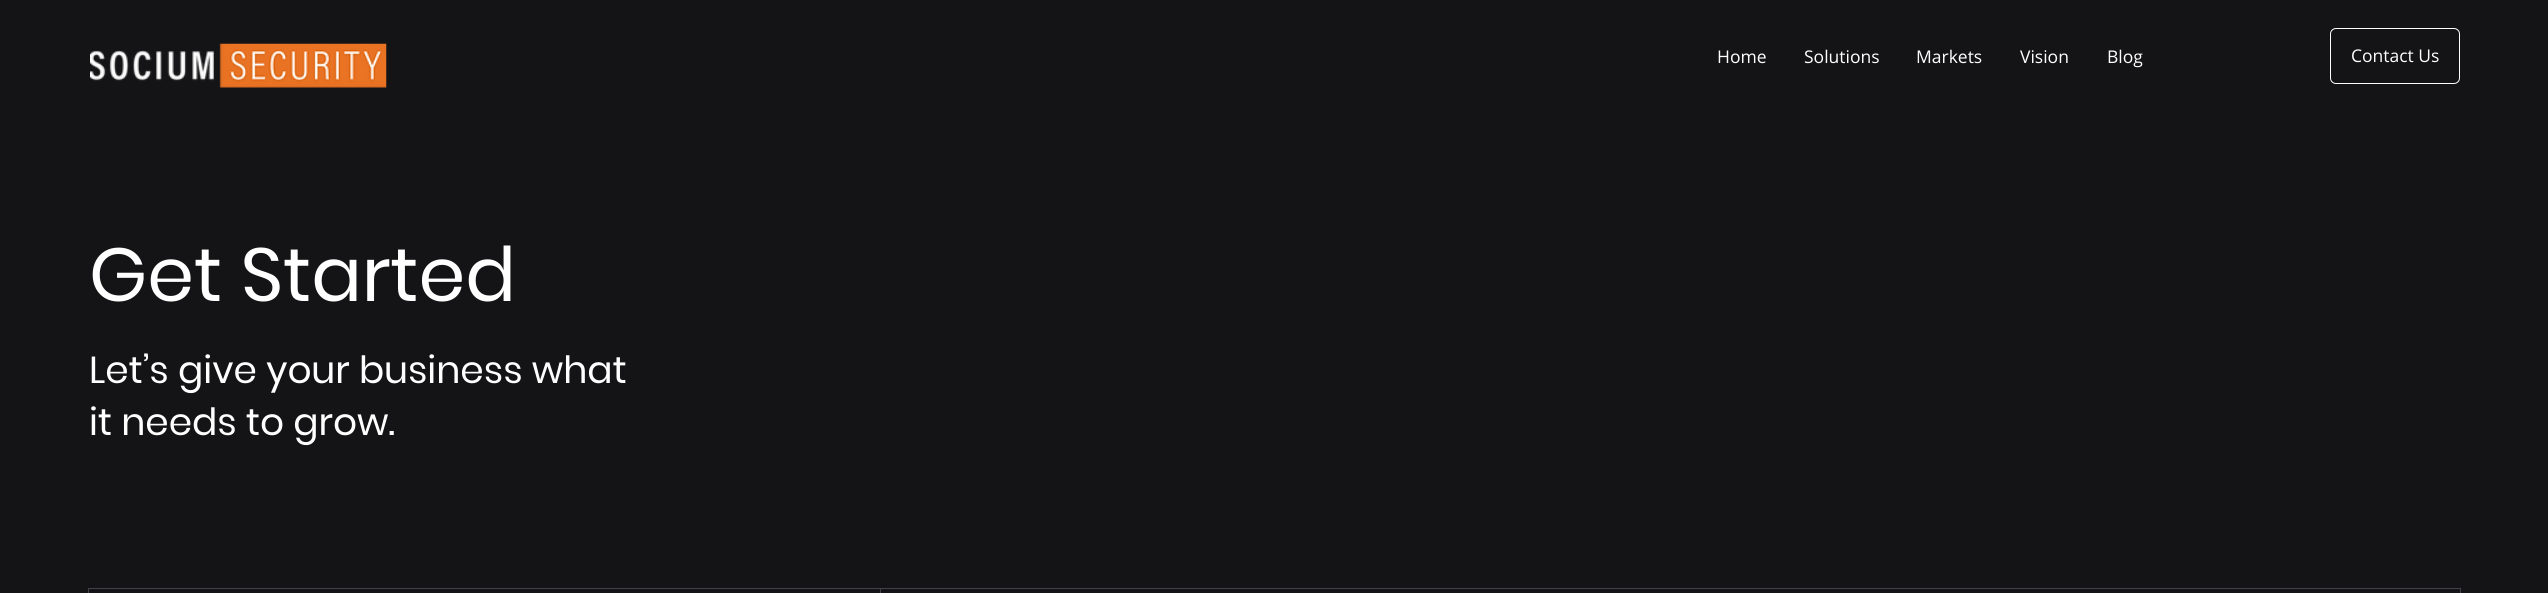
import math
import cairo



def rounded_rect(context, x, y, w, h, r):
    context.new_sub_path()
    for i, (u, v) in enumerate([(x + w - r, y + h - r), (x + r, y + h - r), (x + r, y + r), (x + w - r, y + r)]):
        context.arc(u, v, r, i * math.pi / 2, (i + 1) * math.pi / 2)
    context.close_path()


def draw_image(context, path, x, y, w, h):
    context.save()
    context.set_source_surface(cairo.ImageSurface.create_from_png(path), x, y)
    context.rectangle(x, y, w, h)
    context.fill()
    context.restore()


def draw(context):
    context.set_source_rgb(20 / 255, 20 / 255, 22 / 255)
    context.paint()
    draw_image(context, "images/1.png", 90, 43, 297, 45)
    rounded_rect(context, 2330.5, 28.5, 129, 55, 5.5)
    context.set_source_rgb(1, 1, 1)
    context.set_line_width(1)
    context.stroke()
    context.set_source_rgb(63 / 255, 67 / 255, 73 / 255)
    context.rectangle(88, 588, 2373, 5)
    context.fill()
    context.set_source_rgb(20 / 255, 20 / 255, 22 / 255)
    context.rectangle(89, 589, 791, 4)
    context.fill()
    context.rectangle(881, 589, 1579, 4)
    context.fill()
    context.select_font_face("Open Sans")
    context.set_font_size(17.5)
    context.set_source_rgb(1, 1, 1)
    context.move_to(1717, 63)
    context.show_text("Home")
    context.move_to(1804, 63)
    context.show_text("Solutions")
    context.move_to(1916, 63)
    context.show_text("Markets")
    context.move_to(2020, 63)
    context.show_text("Vision")
    context.move_to(2107, 63)
    context.show_text("Blog")
    context.move_to(2351, 62)
    context.show_text("Contact Us")
    context.select_font_face("Poppins")
    context.set_font_size(75)
    context.move_to(89, 301)
    context.show_text("Get Started")
    context.set_font_size(37.5)
    context.move_to(89, 383)
    context.show_text("Let’s give your business what")
    context.move_to(89, 435)
    context.show_text("it needs to grow.")


surface = cairo.ImageSurface(cairo.Format.RGB24, 2548, 593)
context = cairo.Context(surface)
options = cairo.FontOptions()
options.set_hint_metrics(cairo.HintMetrics.OFF)
options.set_hint_style(cairo.HintStyle.NONE)
context.set_font_options(options)
context.set_miter_limit(4)
draw(context)
surface.write_to_png("out.png")
